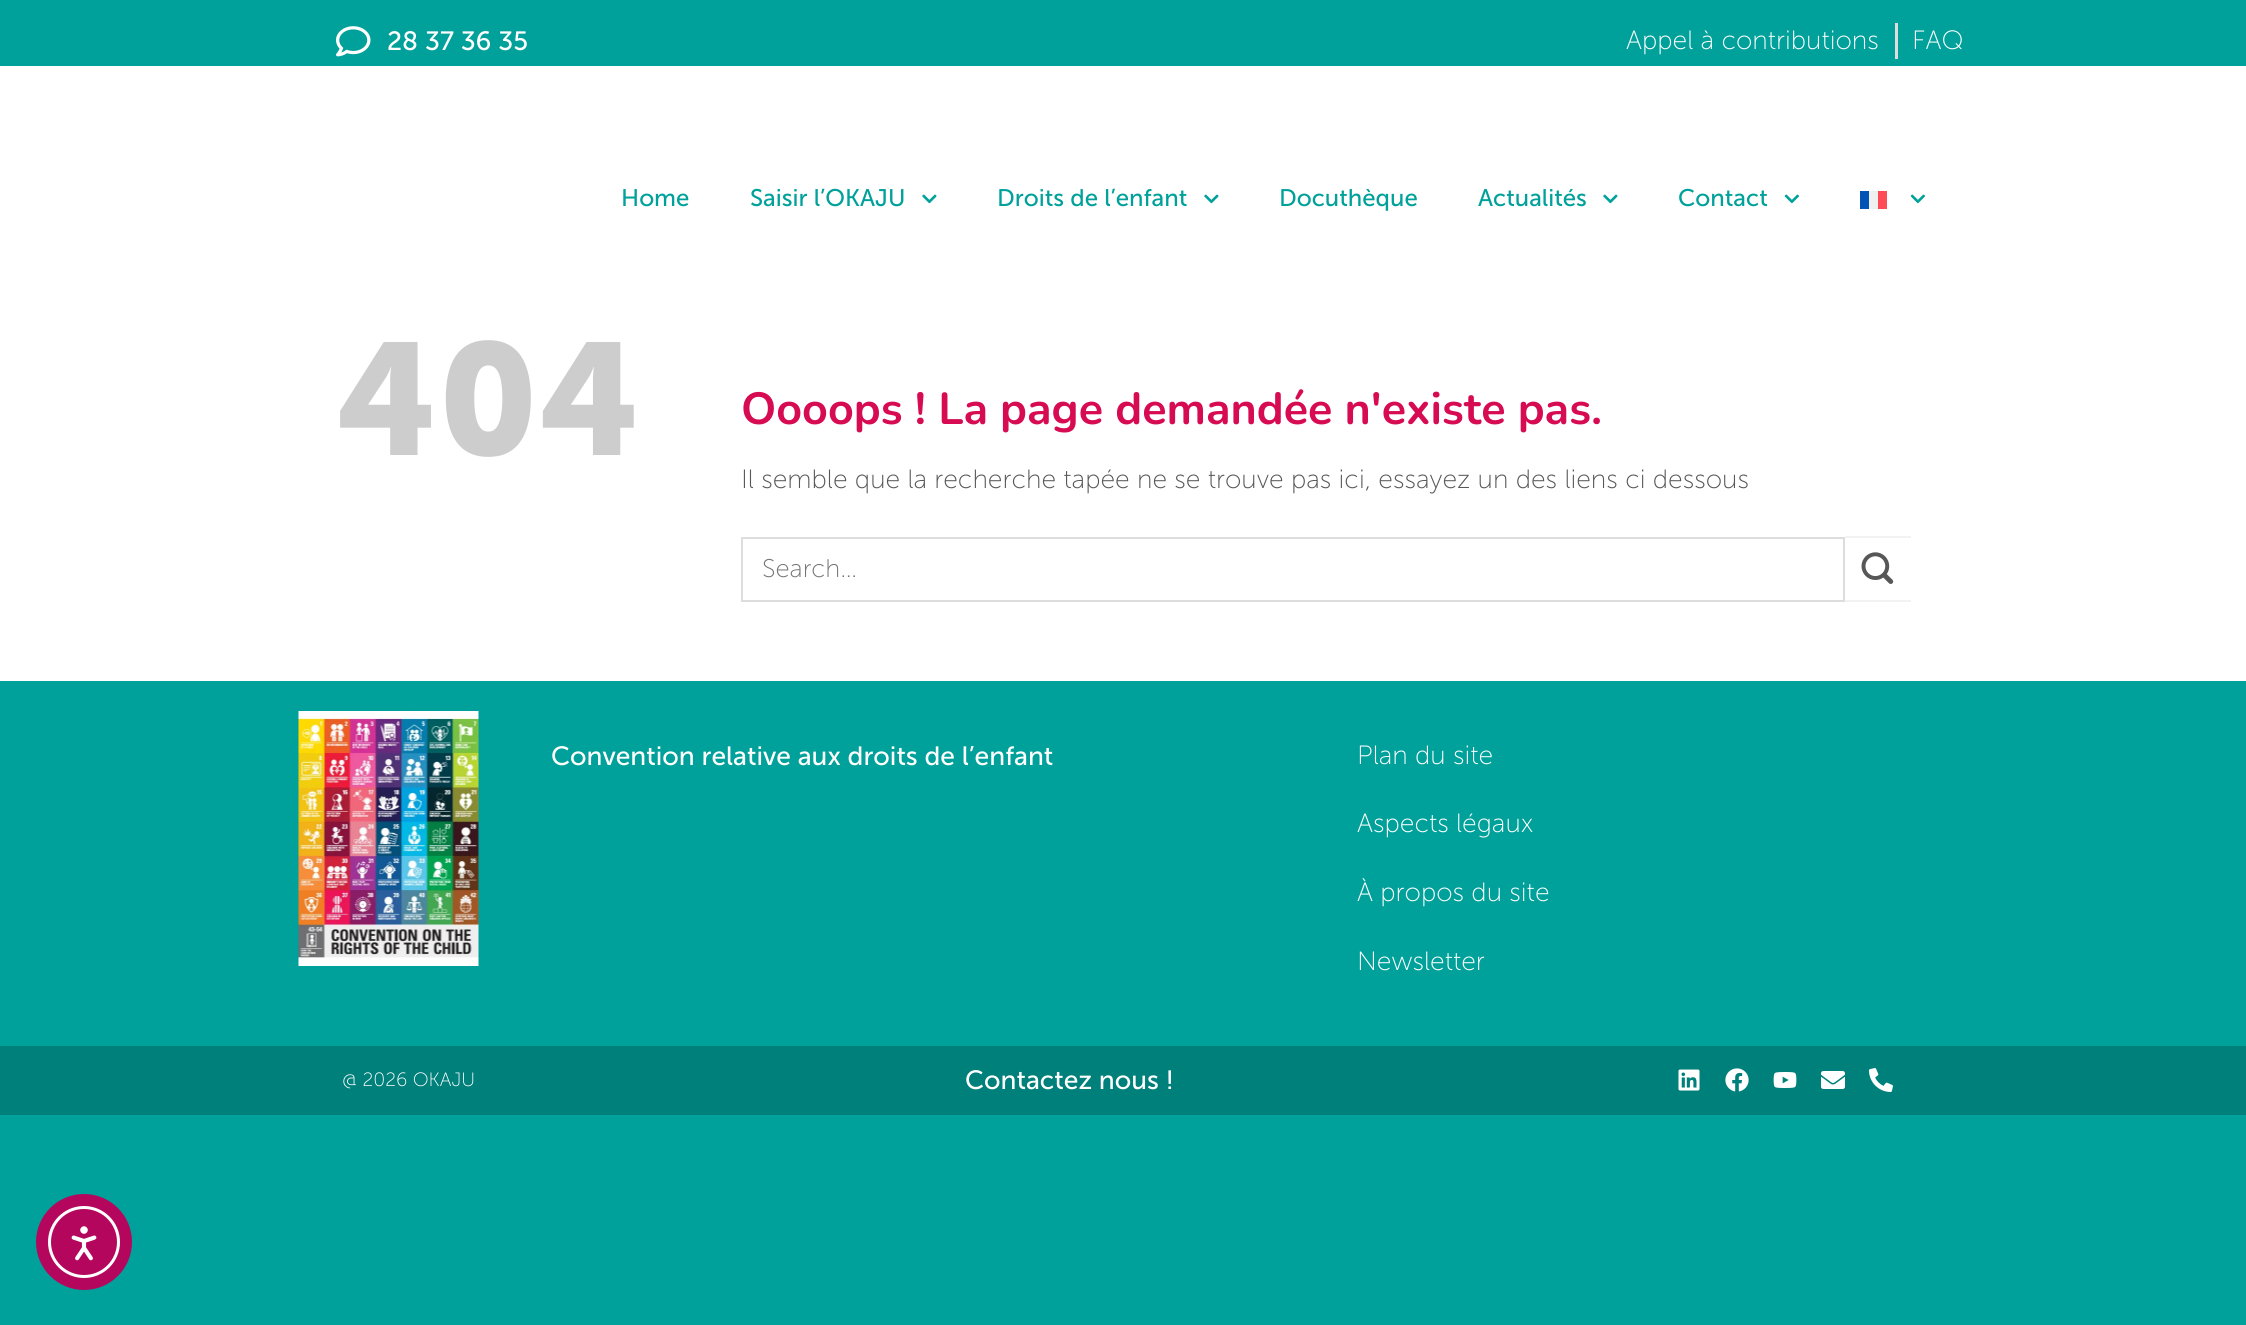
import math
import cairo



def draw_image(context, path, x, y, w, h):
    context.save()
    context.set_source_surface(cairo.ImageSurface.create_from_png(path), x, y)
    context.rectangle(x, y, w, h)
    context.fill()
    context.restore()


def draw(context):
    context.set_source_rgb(0, 161 / 255, 154 / 255)
    context.paint()
    context.set_source_rgb(1, 1, 1)
    context.rectangle(0, 66, 2246, 615)
    context.fill()
    draw_image(context, "images/1.png", 336, 26, 35, 31)
    context.set_source_rgb(221 / 255, 221 / 255, 221 / 255)
    context.rectangle(1895, 23, 3, 36)
    context.fill()
    draw_image(context, "images/2.png", 922, 194, 15, 10)
    draw_image(context, "images/2.png", 1204, 194, 15, 10)
    draw_image(context, "images/2.png", 1603, 194, 15, 10)
    draw_image(context, "images/3.png", 1784, 194, 15, 10)
    context.set_source_rgb(240 / 255, 240 / 255, 240 / 255)
    context.rectangle(1869, 191, 9, 18)
    context.fill()
    context.set_source_rgb(1, 75 / 255, 85 / 255)
    context.rectangle(1878, 191, 9, 18)
    context.fill()
    context.set_source_rgb(0, 82 / 255, 180 / 255)
    context.rectangle(1860, 191, 9, 18)
    context.fill()
    draw_image(context, "images/3.png", 1910, 194, 15, 10)
    context.rectangle(742, 538, 1102, 63)
    context.set_source_rgb(221 / 255, 221 / 255, 221 / 255)
    context.stroke()
    context.set_source_rgb(242 / 255, 242 / 255, 242 / 255)
    context.rectangle(1845, 536, 66, 2)
    context.fill()
    context.rectangle(1845, 600, 66, 2)
    context.fill()
    draw_image(context, "images/4.png", 1861, 552, 33, 32)
    draw_image(context, "images/5.png", 298, 711, 181, 255)
    context.set_source_rgb(0, 128 / 255, 122 / 255)
    context.rectangle(0, 1046, 2246, 69)
    context.fill()
    draw_image(context, "images/6.png", 1678, 1069, 22, 22)
    draw_image(context, "images/7.png", 1725, 1068, 24, 24)
    draw_image(context, "images/8.png", 1773, 1072, 24, 16)
    draw_image(context, "images/9.png", 1821, 1071, 24, 18)
    draw_image(context, "images/10.png", 1869, 1068, 24, 24)
    context.set_source_rgb(180 / 255, 6 / 255, 93 / 255)
    context.arc(84, 1242, 48, 0, 2 * math.pi)
    context.fill()
    context.arc(84, 1242, 34.5, 0, 2 * math.pi)
    context.set_source_rgb(1, 1, 1)
    context.set_line_width(3)
    context.stroke()
    draw_image(context, "images/11.png", 71, 1226, 26, 35)
    context.select_font_face("Museo Sans")
    context.set_font_size(26.4)
    context.move_to(387, 50)
    context.show_text("28 37 36 35")
    context.select_font_face("Museo Sans Light")
    context.move_to(1626, 49)
    context.show_text("Appel à contributions")
    context.move_to(1912, 49)
    context.show_text("FAQ")
    context.select_font_face("Museo Sans")
    context.set_font_size(24)
    context.set_source_rgb(0, 161 / 255, 154 / 255)
    context.move_to(621, 206)
    context.show_text("Home")
    context.move_to(750, 206)
    context.show_text("Saisir l’OKAJU")
    context.move_to(997, 206)
    context.show_text("Droits de l’enfant")
    context.move_to(1279, 206)
    context.show_text("Docuthèque")
    context.move_to(1478, 206)
    context.show_text("Actualités")
    context.move_to(1678, 206)
    context.show_text("Contact")
    context.select_font_face("Museo Sans", cairo.FontSlant.NORMAL, cairo.FontWeight.BOLD)
    context.set_font_size(158)
    context.set_source_rgb(205 / 255, 205 / 255, 205 / 255)
    context.move_to(336, 455)
    context.show_text("404")
    context.select_font_face("Nunito ExtraLight")
    context.set_font_size(44.9)
    context.set_source_rgb(214 / 255, 11 / 255, 82 / 255)
    context.move_to(741, 424)
    context.show_text("Oooops ! La page demandée n'existe pas.")
    context.select_font_face("Museo Sans Light")
    context.set_font_size(26.4)
    context.set_source_rgb(87 / 255, 87 / 255, 87 / 255)
    context.move_to(741, 488)
    context.show_text("Il semble que la recherche tapée ne se trouve pas ici, essayez un des liens ci dessous")
    context.set_font_size(25.5)
    context.set_source_rgb(117 / 255, 117 / 255, 117 / 255)
    context.move_to(762, 577)
    context.show_text("Search…")
    context.select_font_face("Museo Sans")
    context.set_font_size(26.4)
    context.set_source_rgb(1, 1, 1)
    context.move_to(551, 765)
    context.show_text("Convention relative aux droits de l’enfant")
    context.select_font_face("Museo Sans Light")
    context.move_to(1357, 764)
    context.show_text("Plan du site")
    context.move_to(1357, 832)
    context.show_text("Aspects légaux")
    context.move_to(1357, 901)
    context.show_text("À propos du site")
    context.move_to(1357, 970)
    context.show_text("Newsletter")
    context.set_font_size(19.25)
    context.move_to(342, 1086)
    context.show_text("@ 2026 OKAJU")
    context.select_font_face("Museo Sans")
    context.set_font_size(26.4)
    context.move_to(965, 1089)
    context.show_text("Contactez nous !")


surface = cairo.ImageSurface(cairo.Format.RGB24, 2246, 1325)
context = cairo.Context(surface)
options = cairo.FontOptions()
options.set_hint_metrics(cairo.HintMetrics.OFF)
options.set_hint_style(cairo.HintStyle.NONE)
context.set_font_options(options)
context.set_miter_limit(4)
draw(context)
surface.write_to_png("out.png")
